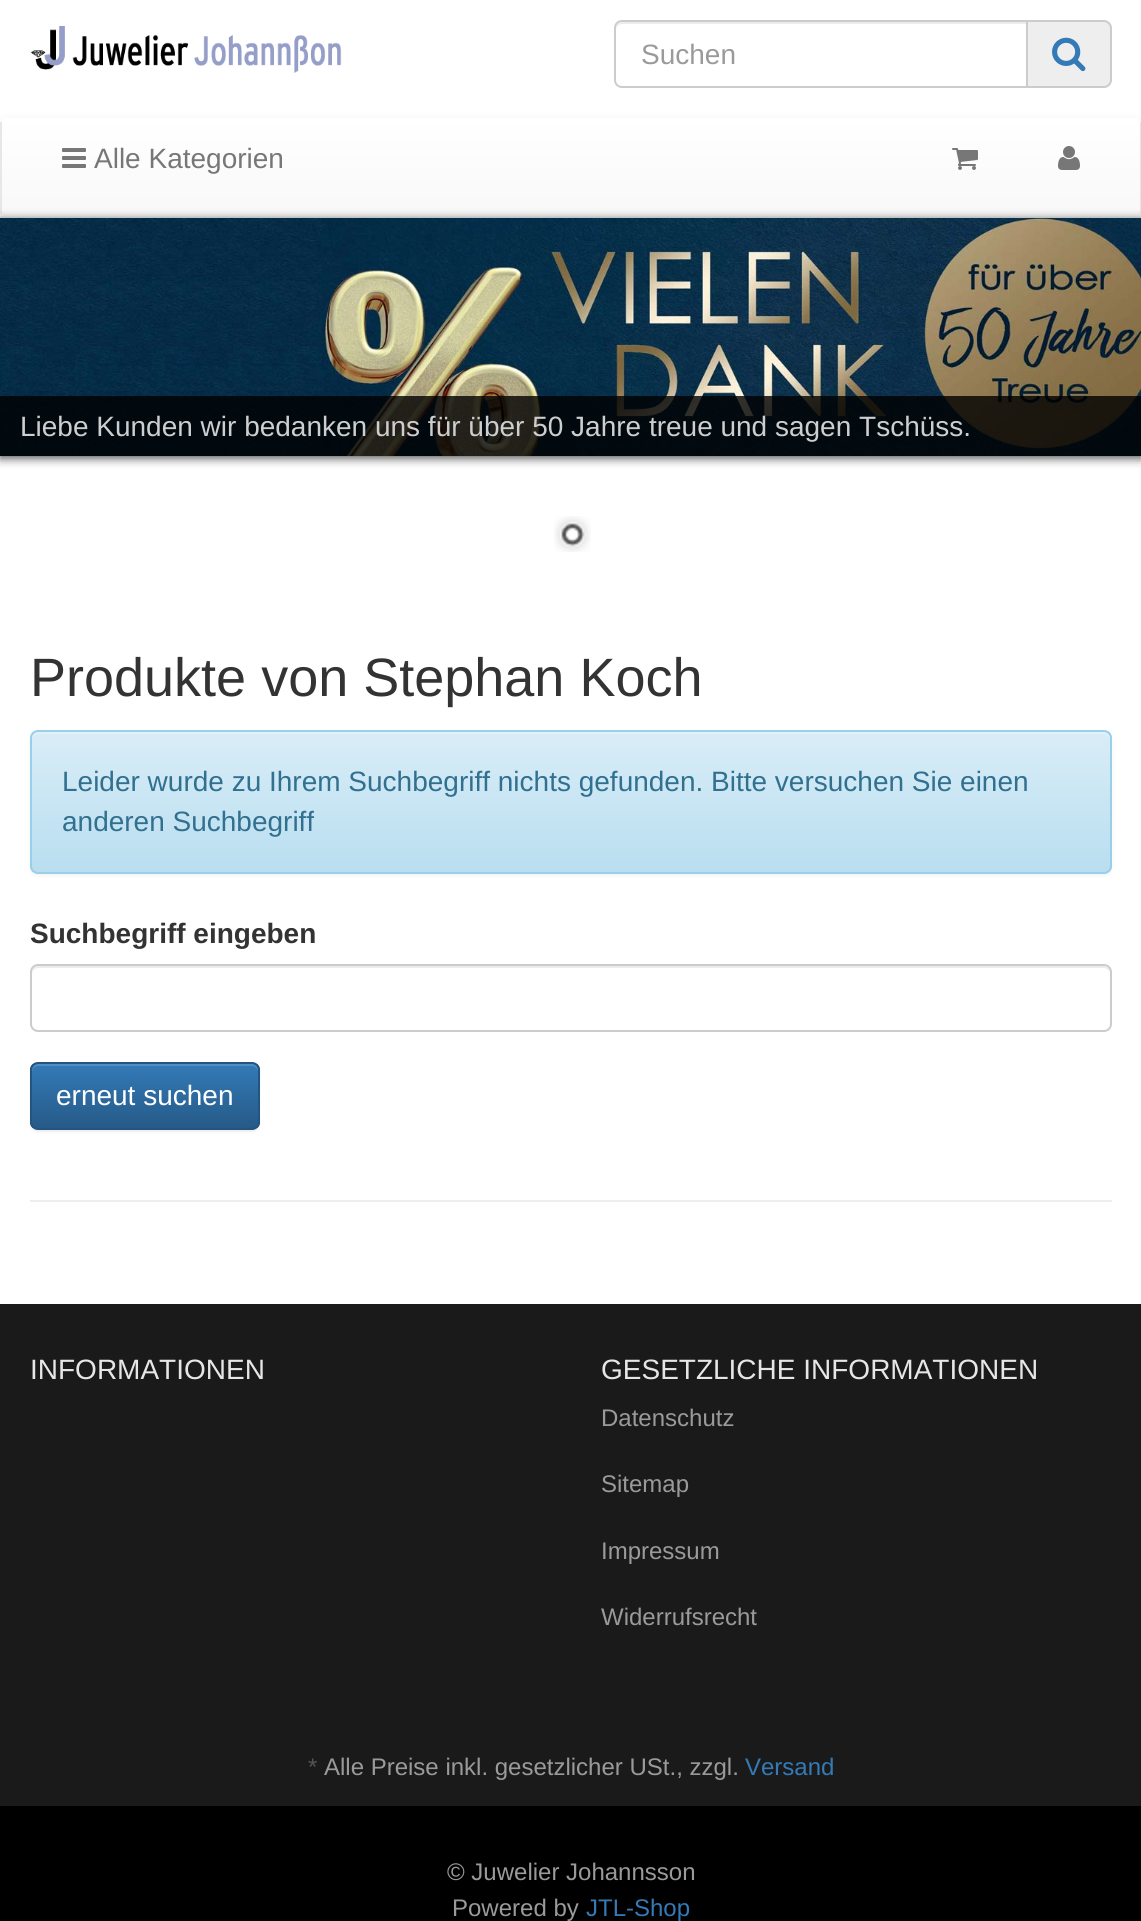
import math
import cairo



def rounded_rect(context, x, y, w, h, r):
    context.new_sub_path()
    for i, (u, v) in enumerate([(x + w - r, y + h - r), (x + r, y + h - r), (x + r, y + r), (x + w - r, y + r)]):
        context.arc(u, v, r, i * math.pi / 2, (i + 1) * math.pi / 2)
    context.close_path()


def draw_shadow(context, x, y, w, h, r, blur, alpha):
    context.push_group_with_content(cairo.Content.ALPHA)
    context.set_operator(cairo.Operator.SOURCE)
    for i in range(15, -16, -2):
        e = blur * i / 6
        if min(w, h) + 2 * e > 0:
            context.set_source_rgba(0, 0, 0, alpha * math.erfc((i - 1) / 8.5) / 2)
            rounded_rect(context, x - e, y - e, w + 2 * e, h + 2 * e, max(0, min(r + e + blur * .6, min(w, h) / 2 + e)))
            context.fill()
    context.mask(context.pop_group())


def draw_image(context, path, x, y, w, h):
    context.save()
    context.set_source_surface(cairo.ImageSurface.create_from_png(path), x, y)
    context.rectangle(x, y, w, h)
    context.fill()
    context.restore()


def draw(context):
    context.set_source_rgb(1, 1, 1)
    context.paint()
    draw_image(context, "images/1.png", 30, 26, 312, 47)
    context.set_source_rgb(236 / 255, 236 / 255, 236 / 255)
    context.new_path()
    context.move_to(622, 24)
    context.line_to(1026, 24)
    context.line_to(1026, 22)
    context.line_to(622, 22)
    context.curve_to(619, 22, 616, 25, 616, 28)
    context.line_to(616, 30)
    context.curve_to(616, 27, 619, 24, 622, 24)
    context.close_path()
    context.fill()
    context.new_path()
    context.move_to(622, 21)
    context.line_to(1027, 21)
    context.line_to(1027, 87)
    context.line_to(622, 87)
    context.curve_to(618, 87, 615, 84, 615, 80)
    context.line_to(615, 28)
    context.curve_to(615, 24, 618, 21, 622, 21)
    context.close_path()
    context.set_source_rgb(204 / 255, 204 / 255, 204 / 255)
    context.stroke()
    context.set_source_rgb(238 / 255, 238 / 255, 238 / 255)
    context.new_path()
    context.move_to(1028, 20)
    context.line_to(1104, 20)
    context.curve_to(1108.5, 20, 1112, 23.5, 1112, 28)
    context.line_to(1112, 80)
    context.curve_to(1112, 84.5, 1108.5, 88, 1104, 88)
    context.line_to(1028, 88)
    context.close_path()
    context.fill()
    context.set_source_rgb(204 / 255, 204 / 255, 204 / 255)
    context.set_fill_rule(cairo.FillRule.EVEN_ODD)
    context.new_path()
    context.move_to(1028, 20)
    context.line_to(1104, 20)
    context.curve_to(1108, 20, 1112, 24, 1112, 28)
    context.line_to(1112, 80)
    context.curve_to(1112, 84, 1108, 88, 1104, 88)
    context.line_to(1028, 88)
    context.close_path()
    context.move_to(1028, 22)
    context.line_to(1104, 22)
    context.curve_to(1107, 22, 1110, 25, 1110, 28)
    context.line_to(1110, 80)
    context.curve_to(1110, 83, 1107, 86, 1104, 86)
    context.line_to(1028, 86)
    context.close_path()
    context.fill()
    draw_image(context, "images/2.png", 1052, 37, 34, 35)
    context.set_source_rgb(0, 0, 0)
    draw_shadow(context, 0, 120, 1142, 100, 8, 5, 0.07)
    gradient = cairo.LinearGradient(571, 118, 571, 218)
    gradient.add_color_stop_rgba(0, 1, 1, 1, 1)
    gradient.add_color_stop_rgba(1, 248 / 255, 248 / 255, 248 / 255, 1)
    context.set_source(gradient)
    rounded_rect(context, 0, 118, 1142, 100, 8)
    context.fill()
    context.set_source_rgb(231 / 255, 231 / 255, 231 / 255)
    context.rectangle(1140, 122, 1, 92)
    context.fill()
    context.rectangle(0, 122, 2, 92)
    context.fill()
    draw_image(context, "images/3.png", 62, 148, 24, 20)
    draw_image(context, "images/4.png", 952, 148, 26, 22)
    draw_image(context, "images/5.png", 1058, 146, 22, 24)
    context.set_source_rgb(74 / 255, 74 / 255, 74 / 255)
    draw_shadow(context, 0, 220, 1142, 238, 0, 5, 1)
    draw_image(context, "images/6.png", 0, 218, 1141, 238)
    context.set_source_rgba(0, 0, 0, 0.8)
    context.rectangle(0, 396, 1141, 60)
    context.fill()
    draw_image(context, "images/7.png", 554, 516, 37, 36)
    context.set_source_rgb(0, 0, 0)
    draw_shadow(context, 30, 732, 1082, 144, 8, 2, 0.05)
    context.save()
    context.set_fill_rule(cairo.FillRule.WINDING)
    rounded_rect(context, 30, 730, 1082, 144, 8)
    context.clip()
    gradient = cairo.LinearGradient(571, 732, 571, 872)
    gradient.add_color_stop_rgba(0, 217 / 255, 237 / 255, 247 / 255, 1)
    gradient.add_color_stop_rgba(1, 185 / 255, 222 / 255, 240 / 255, 1)
    context.set_source(gradient)
    context.rectangle(30, 732, 1082, 140)
    context.fill()
    context.restore()
    context.set_source_rgb(226 / 255, 241 / 255, 249 / 255)
    context.set_fill_rule(cairo.FillRule.WINDING)
    context.new_path()
    context.move_to(38, 734)
    context.line_to(1104, 734)
    context.curve_to(1107, 734, 1110, 737, 1110, 740)
    context.line_to(1110, 738)
    context.curve_to(1110, 735, 1107, 732, 1104, 732)
    context.line_to(38, 732)
    context.curve_to(35, 732, 32, 735, 32, 738)
    context.line_to(32, 740)
    context.curve_to(32, 737, 35, 734, 38, 734)
    context.close_path()
    context.fill()
    rounded_rect(context, 31, 731, 1080, 142, 7)
    context.set_source_rgb(154 / 255, 207 / 255, 234 / 255)
    context.stroke()
    context.set_source_rgb(236 / 255, 236 / 255, 236 / 255)
    context.new_path()
    context.move_to(38, 968)
    context.line_to(1104, 968)
    context.curve_to(1107, 968, 1110, 971, 1110, 974)
    context.line_to(1110, 972)
    context.curve_to(1110, 969, 1107, 966, 1104, 966)
    context.line_to(38, 966)
    context.curve_to(35, 966, 32, 969, 32, 972)
    context.line_to(32, 974)
    context.curve_to(32, 971, 35, 968, 38, 968)
    context.close_path()
    context.fill()
    rounded_rect(context, 31, 965, 1080, 66, 7)
    context.set_source_rgb(204 / 255, 204 / 255, 204 / 255)
    context.stroke()
    context.set_source_rgb(0, 0, 0)
    draw_shadow(context, 30, 1064, 230, 68, 8, 1, 0.07)
    context.save()
    rounded_rect(context, 30, 1062, 230, 68, 8)
    context.clip()
    gradient = cairo.LinearGradient(145, 1064, 145, 1128)
    gradient.add_color_stop_rgba(0, 51 / 255, 122 / 255, 183 / 255, 1)
    gradient.add_color_stop_rgba(1, 38 / 255, 90 / 255, 136 / 255, 1)
    context.set_source(gradient)
    context.rectangle(30, 1064, 230, 64)
    context.fill()
    context.restore()
    context.set_source_rgba(1, 1, 1, 0.15)
    context.new_path()
    context.move_to(38, 1066)
    context.line_to(252, 1066)
    context.curve_to(255, 1066, 258, 1069, 258, 1072)
    context.line_to(258, 1070)
    context.curve_to(258, 1067, 255, 1064, 252, 1064)
    context.line_to(38, 1064)
    context.curve_to(35, 1064, 32, 1067, 32, 1070)
    context.line_to(32, 1072)
    context.curve_to(32, 1069, 35, 1066, 38, 1066)
    context.close_path()
    context.fill()
    rounded_rect(context, 31, 1063, 228, 66, 7)
    context.set_source_rgb(36 / 255, 85 / 255, 128 / 255)
    context.stroke()
    context.set_source_rgb(238 / 255, 238 / 255, 238 / 255)
    context.rectangle(30, 1200, 1082, 2)
    context.fill()
    context.set_source_rgb(26 / 255, 26 / 255, 26 / 255)
    context.rectangle(0, 1304, 1141, 502)
    context.fill()
    context.set_source_rgb(0, 0, 0)
    context.rectangle(0, 1806, 1141, 115)
    context.fill()
    context.select_font_face("Liberation Sans")
    context.set_font_size(28)
    context.set_source_rgb(154 / 255, 154 / 255, 154 / 255)
    context.move_to(641, 64)
    context.show_text("Suchen")
    context.set_source_rgb(119 / 255, 119 / 255, 119 / 255)
    context.move_to(94, 168)
    context.show_text("Alle Kategorien")
    context.set_source_rgb(205 / 255, 206 / 255, 207 / 255)
    context.move_to(20, 436)
    context.show_text("Liebe Kunden wir bedanken uns für über 50 Jahre treue und sagen Tschüss.")
    context.set_font_size(54)
    context.set_source_rgb(51 / 255, 51 / 255, 51 / 255)
    context.move_to(30, 696)
    context.show_text("Produkte von Stephan Koch")
    context.set_font_size(28)
    context.set_source_rgb(49 / 255, 112 / 255, 143 / 255)
    context.move_to(62, 791)
    context.show_text("Leider wurde zu Ihrem Suchbegriff nichts gefunden. Bitte versuchen Sie einen")
    context.move_to(62, 831)
    context.show_text("anderen Suchbegriff")
    context.select_font_face("Liberation Sans", cairo.FontSlant.NORMAL, cairo.FontWeight.BOLD)
    context.set_source_rgb(51 / 255, 51 / 255, 51 / 255)
    context.move_to(30, 943)
    context.show_text("Suchbegriff eingeben")
    context.select_font_face("Liberation Sans")
    context.set_source_rgb(1, 1, 1)
    context.move_to(56, 1105)
    context.show_text("erneut suchen")
    context.set_source_rgb(230 / 255, 230 / 255, 230 / 255)
    context.move_to(30, 1379)
    context.show_text("INFORMATIONEN")
    context.move_to(601, 1379)
    context.show_text("GESETZLICHE INFORMATIONEN")
    context.set_font_size(24)
    context.set_source_rgb(154 / 255, 154 / 255, 154 / 255)
    context.move_to(601, 1426)
    context.show_text("Datenschutz")
    context.move_to(601, 1492)
    context.show_text("Sitemap")
    context.move_to(601, 1559)
    context.show_text("Impressum")
    context.move_to(601, 1625)
    context.show_text("Widerrufsrecht")
    context.set_source_rgb(85 / 255, 85 / 255, 85 / 255)
    context.move_to(308, 1775)
    context.show_text("*")
    context.set_source_rgb(154 / 255, 154 / 255, 154 / 255)
    context.move_to(324, 1775)
    context.show_text("Alle Preise inkl. gesetzlicher USt., zzgl.")
    context.set_source_rgb(51 / 255, 122 / 255, 183 / 255)
    context.move_to(745, 1775)
    context.show_text("Versand")
    context.set_source_rgb(154 / 255, 154 / 255, 154 / 255)
    context.move_to(447, 1880)
    context.show_text("© Juwelier Johannsson")
    context.move_to(452, 1916)
    context.show_text("Powered by")
    context.set_source_rgb(51 / 255, 122 / 255, 183 / 255)
    context.move_to(586, 1916)
    context.show_text("JTL-Shop")


surface = cairo.ImageSurface(cairo.Format.RGB24, 1141, 1921)
context = cairo.Context(surface)
options = cairo.FontOptions()
options.set_hint_metrics(cairo.HintMetrics.OFF)
options.set_hint_style(cairo.HintStyle.NONE)
context.set_font_options(options)
context.set_miter_limit(4)
draw(context)
surface.write_to_png("out.png")
